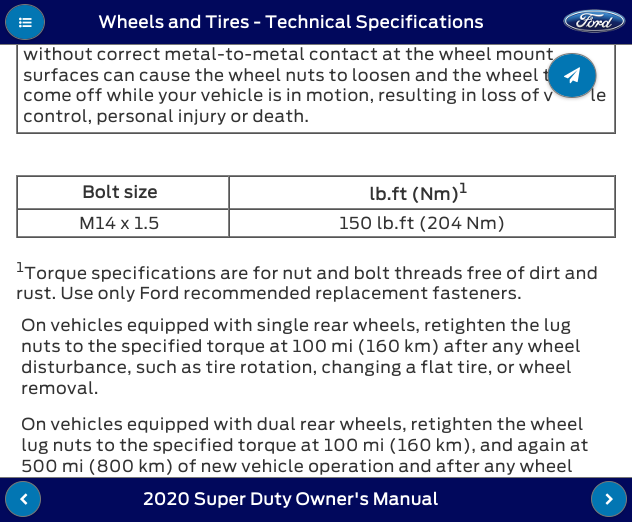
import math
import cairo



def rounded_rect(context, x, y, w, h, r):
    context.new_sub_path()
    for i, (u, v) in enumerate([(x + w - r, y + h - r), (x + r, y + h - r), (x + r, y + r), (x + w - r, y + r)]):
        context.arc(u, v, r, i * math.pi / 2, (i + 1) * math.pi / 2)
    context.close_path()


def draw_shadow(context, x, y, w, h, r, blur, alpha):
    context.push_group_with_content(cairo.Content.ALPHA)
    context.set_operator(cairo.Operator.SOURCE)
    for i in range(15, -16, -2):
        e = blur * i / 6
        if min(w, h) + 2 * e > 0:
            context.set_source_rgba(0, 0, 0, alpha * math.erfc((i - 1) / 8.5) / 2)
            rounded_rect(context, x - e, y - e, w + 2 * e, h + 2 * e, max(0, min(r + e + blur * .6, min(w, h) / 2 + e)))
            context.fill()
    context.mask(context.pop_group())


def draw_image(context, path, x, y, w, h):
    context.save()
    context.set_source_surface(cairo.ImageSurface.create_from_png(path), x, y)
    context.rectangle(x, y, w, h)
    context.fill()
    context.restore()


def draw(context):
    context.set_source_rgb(1, 1, 1)
    context.paint()
    context.set_source_rgb(1 / 255, 8 / 255, 92 / 255)
    context.rectangle(0, 0, 632, 44)
    context.fill()
    context.set_source_rgb(120 / 255, 120 / 255, 120 / 255)
    context.rectangle(0, 44, 632, 1)
    context.fill()
    context.set_source_rgb(85 / 255, 85 / 255, 85 / 255)
    context.rectangle(615, 45, 1, 89)
    context.fill()
    context.rectangle(16, 133, 600, 1)
    context.fill()
    context.set_source_rgb(128 / 255, 128 / 255, 128 / 255)
    context.rectangle(16, 45, 1, 89)
    context.fill()
    context.rectangle(614, 45, 1, 88)
    context.fill()
    context.rectangle(17, 132, 598, 1)
    context.fill()
    context.set_source_rgb(85 / 255, 85 / 255, 85 / 255)
    context.rectangle(17, 45, 1, 88)
    context.fill()
    context.set_source_rgb(0, 0, 0)
    draw_shadow(context, 5, 5, 40, 36, 18, 1.5, 0.2)
    context.set_source_rgb(2 / 255, 118 / 255, 179 / 255)
    context.new_path()
    context.move_to(25, 5)
    context.curve_to(35.5, 5, 44, 12.5, 44, 22)
    context.curve_to(44, 31.5, 35.5, 39, 25, 39)
    context.curve_to(14.5, 39, 6, 31.5, 6, 22)
    context.curve_to(6, 12.5, 14.5, 5, 25, 5)
    context.close_path()
    context.fill()
    context.new_path()
    context.move_to(25, 4.5)
    context.curve_to(36, 4.5, 44.5, 12.5, 44.5, 22)
    context.curve_to(44.5, 31.5, 36, 39.5, 25, 39.5)
    context.curve_to(14, 39.5, 5.5, 31.5, 5.5, 22)
    context.curve_to(5.5, 12.5, 14, 4.5, 25, 4.5)
    context.close_path()
    context.set_source_rgb(120 / 255, 120 / 255, 120 / 255)
    context.set_line_width(1)
    context.stroke()
    draw_image(context, "images/1.png", 19, 17, 13, 11)
    draw_image(context, "images/2.png", 563, 9, 63, 24)
    context.set_source_rgb(128 / 255, 128 / 255, 128 / 255)
    context.rectangle(16, 175, 600, 1)
    context.fill()
    context.set_source_rgb(85 / 255, 85 / 255, 85 / 255)
    context.rectangle(615, 175, 1, 63)
    context.fill()
    context.rectangle(16, 237, 600, 1)
    context.fill()
    context.set_source_rgb(128 / 255, 128 / 255, 128 / 255)
    context.rectangle(16, 175, 1, 63)
    context.fill()
    context.set_source_rgb(85 / 255, 85 / 255, 85 / 255)
    context.rectangle(17, 176, 598, 1)
    context.fill()
    context.set_source_rgb(128 / 255, 128 / 255, 128 / 255)
    context.rectangle(228, 176, 1, 33)
    context.fill()
    context.rectangle(17, 208, 212, 1)
    context.fill()
    context.set_source_rgb(85 / 255, 85 / 255, 85 / 255)
    context.rectangle(17, 176, 1, 33)
    context.fill()
    context.set_source_rgb(128 / 255, 128 / 255, 128 / 255)
    context.rectangle(614, 176, 1, 33)
    context.fill()
    context.rectangle(229, 208, 386, 1)
    context.fill()
    context.set_source_rgb(85 / 255, 85 / 255, 85 / 255)
    context.rectangle(229, 176, 1, 33)
    context.fill()
    context.rectangle(17, 209, 598, 1)
    context.fill()
    context.set_source_rgb(128 / 255, 128 / 255, 128 / 255)
    context.rectangle(228, 209, 1, 28)
    context.fill()
    context.rectangle(17, 236, 212, 1)
    context.fill()
    context.set_source_rgb(85 / 255, 85 / 255, 85 / 255)
    context.rectangle(17, 209, 1, 28)
    context.fill()
    context.set_source_rgb(128 / 255, 128 / 255, 128 / 255)
    context.rectangle(614, 209, 1, 28)
    context.fill()
    context.rectangle(229, 236, 386, 1)
    context.fill()
    context.set_source_rgb(85 / 255, 85 / 255, 85 / 255)
    context.rectangle(229, 209, 1, 28)
    context.fill()
    context.set_source_rgb(0, 0, 0)
    draw_shadow(context, 547, 54, 50, 45, 22.5, 1.5, 0.2)
    context.set_source_rgb(1 / 255, 8 / 255, 92 / 255)
    context.rectangle(0, 478, 632, 44)
    context.fill()
    context.set_source_rgb(120 / 255, 120 / 255, 120 / 255)
    context.rectangle(0, 477, 632, 1)
    context.fill()
    context.set_source_rgb(0, 0, 0)
    draw_shadow(context, 5, 482, 36, 36, 18, 1.5, 0.2)
    context.set_source_rgb(2 / 255, 118 / 255, 179 / 255)
    context.arc(23, 499, 17.5, 0, 2 * math.pi)
    context.fill_preserve()
    context.set_source_rgb(120 / 255, 120 / 255, 120 / 255)
    context.stroke()
    draw_image(context, "images/4.png", 20, 493, 8, 12)
    context.set_source_rgb(0, 0, 0)
    draw_shadow(context, 591, 482, 36, 36, 18, 1.5, 0.2)
    context.set_source_rgb(2 / 255, 118 / 255, 179 / 255)
    context.arc(609, 499, 17.5, 0, 2 * math.pi)
    context.fill_preserve()
    context.set_source_rgb(120 / 255, 120 / 255, 120 / 255)
    context.stroke()
    draw_image(context, "images/5.png", 605, 493, 8, 12)
    context.select_font_face("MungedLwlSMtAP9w", cairo.FontSlant.NORMAL, cairo.FontWeight.BOLD)
    context.set_font_size(16)
    context.set_source_rgb(1, 1, 1)
    context.move_to(98, 28)
    context.show_text("Wheels and Tires - Technical Specifications")
    context.select_font_face("MungedLwlSMtAP9w")
    context.set_source_rgb(51 / 255, 51 / 255, 51 / 255)
    context.move_to(23, 60)
    context.show_text("without correct metal-to-metal contact at the wheel mount")
    context.move_to(23, 81)
    context.show_text("surfaces can cause the wheel nuts to loosen and the wheel t")
    context.move_to(23, 101)
    context.show_text("come off while your vehicle is in motion, resulting in loss of v")
    context.move_to(590, 101)
    context.show_text("le")
    context.move_to(23, 122)
    context.show_text("control, personal injury or death.")
    context.select_font_face("MungedLwlSMtAP9w", cairo.FontSlant.NORMAL, cairo.FontWeight.BOLD)
    context.move_to(82, 198)
    context.show_text("Bolt size")
    context.move_to(369, 200)
    context.show_text("lb.ft (Nm)")
    context.set_font_size(13)
    context.move_to(459, 193)
    context.show_text("1")
    context.select_font_face("MungedLwlSMtAP9w")
    context.set_font_size(16)
    context.move_to(79, 229)
    context.show_text("M14 x 1.5")
    context.move_to(339, 229)
    context.show_text("150 lb.ft (204 Nm)")
    context.set_font_size(13)
    context.move_to(16, 272)
    context.show_text("1")
    context.set_font_size(16)
    context.move_to(24, 279)
    context.show_text("Torque specifications are for nut and bolt threads free of dirt and")
    context.move_to(16, 299)
    context.show_text("rust. Use only Ford recommended replacement fasteners.")
    context.move_to(21, 331)
    context.show_text("On vehicles equipped with single rear wheels, retighten the lug")
    context.move_to(21, 352)
    context.show_text("nuts to the specified torque at 100 mi (160 km) after any wheel")
    context.move_to(21, 373)
    context.show_text("disturbance, such as tire rotation, changing a flat tire, or wheel")
    context.move_to(21, 394)
    context.show_text("removal.")
    context.move_to(21, 430)
    context.show_text("On vehicles equipped with dual rear wheels, retighten the wheel")
    context.move_to(21, 451)
    context.show_text("lug nuts to the specified torque at 100 mi (160 km), and again at")
    context.move_to(21, 472)
    context.show_text("500 mi (800 km) of new vehicle operation and after any wheel")
    context.set_source_rgb(2 / 255, 118 / 255, 179 / 255)
    context.new_path()
    context.move_to(572, 54)
    context.curve_to(585.5, 54, 596, 63.5, 596, 75.5)
    context.curve_to(596, 87.5, 585.5, 97, 572, 97)
    context.curve_to(558.5, 97, 548, 87.5, 548, 75.5)
    context.curve_to(548, 63.5, 558.5, 54, 572, 54)
    context.close_path()
    context.fill()
    context.new_path()
    context.move_to(572, 53.5)
    context.curve_to(604, 53.5, 604, 97.5, 572, 97.5)
    context.curve_to(540, 97.5, 540, 53.5, 572, 53.5)
    context.close_path()
    context.set_source_rgb(120 / 255, 120 / 255, 120 / 255)
    context.stroke()
    draw_image(context, "images/3.png", 564, 67, 16, 17)
    context.select_font_face("MungedLwlSMtAP9w", cairo.FontSlant.NORMAL, cairo.FontWeight.BOLD)
    context.set_source_rgb(1, 1, 1)
    context.move_to(143, 505)
    context.show_text("2020 Super Duty Owner's Manual")


surface = cairo.ImageSurface(cairo.Format.RGB24, 632, 522)
context = cairo.Context(surface)
options = cairo.FontOptions()
options.set_hint_metrics(cairo.HintMetrics.OFF)
options.set_hint_style(cairo.HintStyle.NONE)
context.set_font_options(options)
context.set_miter_limit(4)
draw(context)
surface.write_to_png("out.png")
